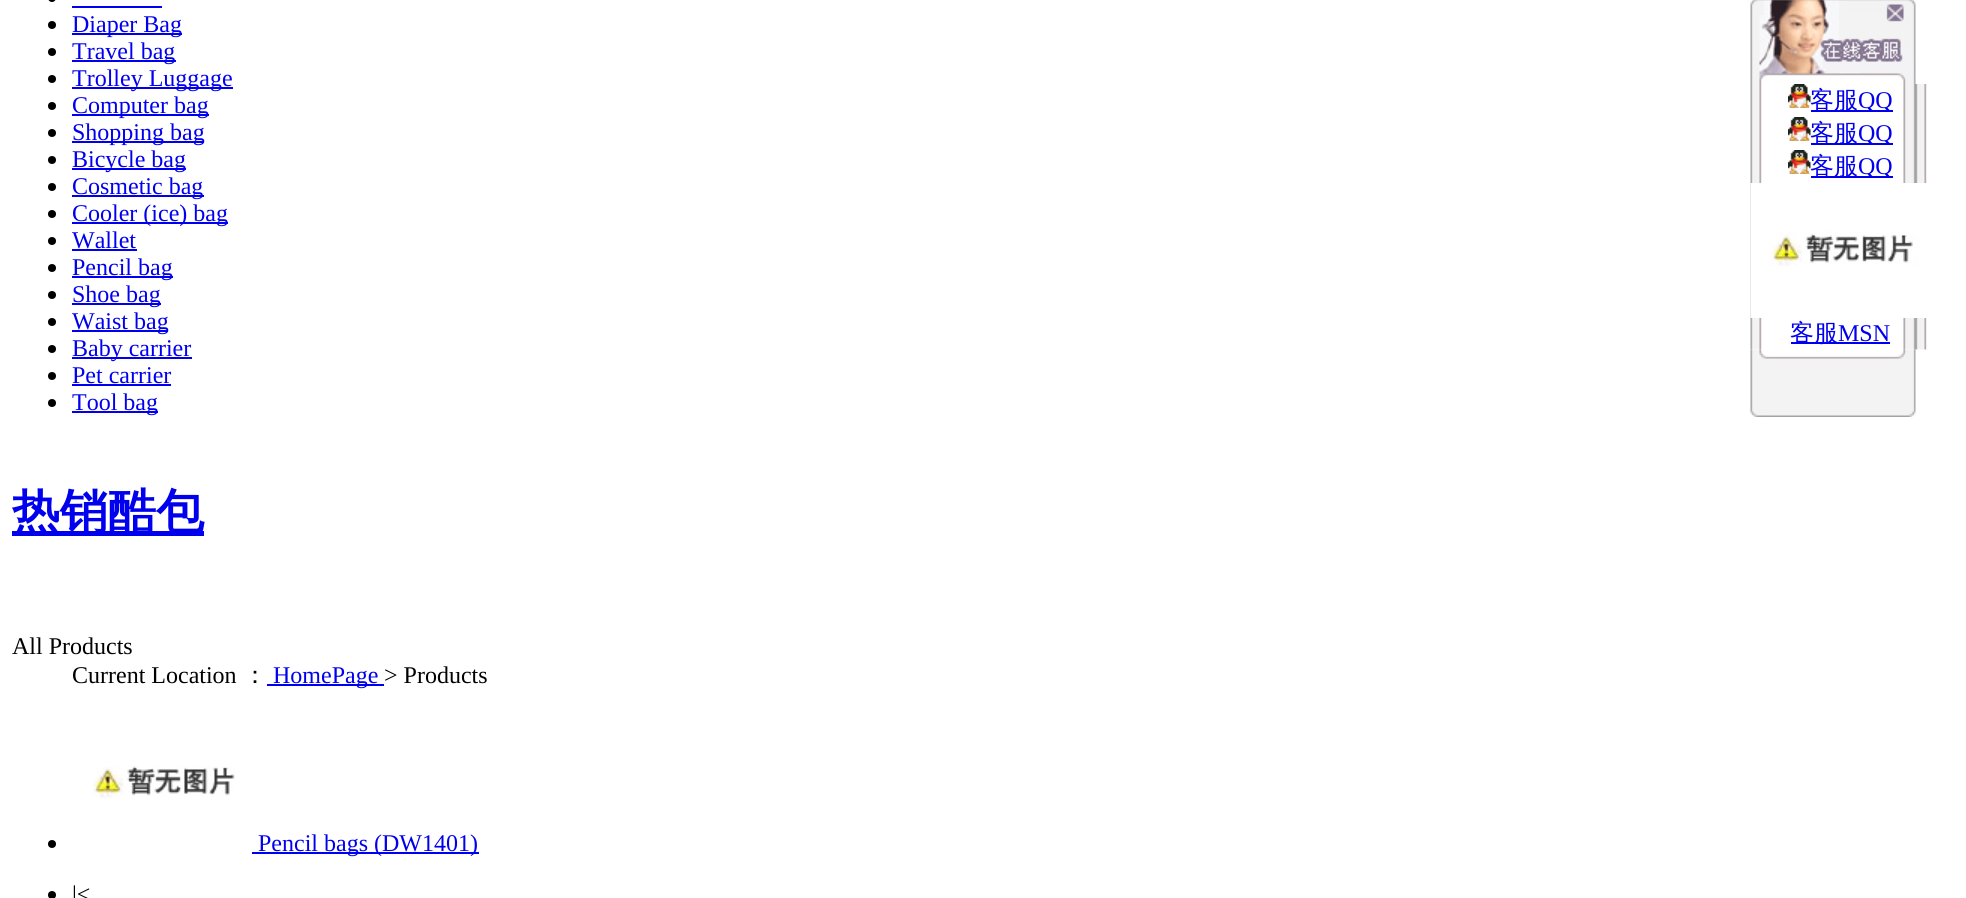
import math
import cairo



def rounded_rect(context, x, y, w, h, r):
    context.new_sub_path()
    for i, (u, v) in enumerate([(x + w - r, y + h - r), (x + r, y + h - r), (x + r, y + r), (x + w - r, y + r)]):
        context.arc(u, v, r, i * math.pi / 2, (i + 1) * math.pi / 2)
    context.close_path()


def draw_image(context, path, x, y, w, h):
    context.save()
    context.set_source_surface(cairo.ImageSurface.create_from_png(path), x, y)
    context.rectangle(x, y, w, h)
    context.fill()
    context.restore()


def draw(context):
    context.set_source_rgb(1, 1, 1)
    context.paint()
    context.set_source_rgb(0, 0, 0)
    rounded_rect(context, 48, -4, 8, 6, 4)
    context.fill()
    context.set_source_rgb(0, 0, 238 / 255)
    context.rectangle(72, 6, 90, 2)
    context.fill()
    context.set_source_rgb(0, 0, 0)
    context.arc(52, 25, 4, 0, 2 * math.pi)
    context.fill()
    context.set_source_rgb(0, 0, 238 / 255)
    context.rectangle(72, 33, 110, 2)
    context.fill()
    context.set_source_rgb(0, 0, 0)
    context.arc(52, 52, 4, 0, 2 * math.pi)
    context.fill()
    context.set_source_rgb(0, 0, 238 / 255)
    context.rectangle(72, 60, 104, 2)
    context.fill()
    context.set_source_rgb(0, 0, 0)
    context.arc(52, 79, 4, 0, 2 * math.pi)
    context.fill()
    context.set_source_rgb(0, 0, 238 / 255)
    context.rectangle(72, 87, 161, 2)
    context.fill()
    context.set_source_rgb(0, 0, 0)
    context.arc(52, 106, 4, 0, 2 * math.pi)
    context.fill()
    context.set_source_rgb(0, 0, 238 / 255)
    context.rectangle(72, 114, 137, 2)
    context.fill()
    context.set_source_rgb(0, 0, 0)
    context.arc(52, 133, 4, 0, 2 * math.pi)
    context.fill()
    context.set_source_rgb(0, 0, 238 / 255)
    context.rectangle(72, 141, 132, 2)
    context.fill()
    context.set_source_rgb(0, 0, 0)
    context.arc(52, 160, 4, 0, 2 * math.pi)
    context.fill()
    context.set_source_rgb(0, 0, 238 / 255)
    context.rectangle(72, 168, 114, 2)
    context.fill()
    context.set_source_rgb(0, 0, 0)
    context.arc(52, 187, 4, 0, 2 * math.pi)
    context.fill()
    context.set_source_rgb(0, 0, 238 / 255)
    context.rectangle(72, 195, 132, 2)
    context.fill()
    context.set_source_rgb(0, 0, 0)
    context.arc(52, 214, 4, 0, 2 * math.pi)
    context.fill()
    context.set_source_rgb(0, 0, 238 / 255)
    context.rectangle(72, 222, 156, 2)
    context.fill()
    context.set_source_rgb(0, 0, 0)
    context.arc(52, 241, 4, 0, 2 * math.pi)
    context.fill()
    context.set_source_rgb(0, 0, 238 / 255)
    context.rectangle(72, 249, 65, 2)
    context.fill()
    context.set_source_rgb(0, 0, 0)
    context.arc(52, 268, 4, 0, 2 * math.pi)
    context.fill()
    context.set_source_rgb(0, 0, 238 / 255)
    context.rectangle(72, 276, 101, 2)
    context.fill()
    context.set_source_rgb(0, 0, 0)
    context.arc(52, 295, 4, 0, 2 * math.pi)
    context.fill()
    context.set_source_rgb(0, 0, 238 / 255)
    context.rectangle(72, 303, 89, 2)
    context.fill()
    context.set_source_rgb(0, 0, 0)
    context.arc(52, 322, 4, 0, 2 * math.pi)
    context.fill()
    context.set_source_rgb(0, 0, 238 / 255)
    context.rectangle(72, 330, 96, 2)
    context.fill()
    context.set_source_rgb(0, 0, 0)
    context.arc(52, 349, 4, 0, 2 * math.pi)
    context.fill()
    context.set_source_rgb(0, 0, 238 / 255)
    context.rectangle(72, 357, 120, 2)
    context.fill()
    context.set_source_rgb(0, 0, 0)
    context.arc(52, 376, 4, 0, 2 * math.pi)
    context.fill()
    context.set_source_rgb(0, 0, 238 / 255)
    context.rectangle(72, 384, 99, 2)
    context.fill()
    context.set_source_rgb(0, 0, 0)
    context.arc(52, 403, 4, 0, 2 * math.pi)
    context.fill()
    context.set_source_rgb(0, 0, 238 / 255)
    context.rectangle(72, 411, 86, 2)
    context.fill()
    context.rectangle(12, 531, 192, 5)
    context.fill()
    context.rectangle(267, 684, 117, 2)
    context.fill()
    draw_image(context, "images/1.png", 93, 766, 142, 32)
    context.set_source_rgb(0, 0, 0)
    context.arc(52, 844, 4, 0, 2 * math.pi)
    context.fill()
    context.set_source_rgb(0, 0, 238 / 255)
    context.rectangle(252, 852, 227, 2)
    context.fill()
    context.set_source_rgb(0, 0, 0)
    context.arc(52, 895, 4, 0, 2 * math.pi)
    context.fill()
    draw_image(context, "images/2.png", 1750, 0, 166, 84)
    draw_image(context, "images/3.png", 1750, 84, 177, 266)
    draw_image(context, "images/4.png", 1788, 84, 23, 24)
    context.set_source_rgb(0, 0, 238 / 255)
    context.rectangle(1811, 110, 82, 2)
    context.fill()
    draw_image(context, "images/4.png", 1788, 117, 23, 24)
    context.rectangle(1811, 143, 82, 2)
    context.fill()
    draw_image(context, "images/4.png", 1788, 150, 23, 24)
    context.rectangle(1811, 176, 82, 2)
    context.fill()
    draw_image(context, "images/5.png", 1750, 183, 177, 135)
    context.rectangle(1791, 342, 99, 2)
    context.fill()
    draw_image(context, "images/6.png", 1750, 349, 166, 68)
    context.select_font_face("Liberation Serif")
    context.set_font_size(24)
    context.move_to(72, 32)
    context.show_text("Diaper Bag")
    context.move_to(72, 59)
    context.show_text("Travel bag")
    context.move_to(72, 86)
    context.show_text("Trolley Luggage")
    context.move_to(72, 113)
    context.show_text("Computer bag")
    context.move_to(72, 140)
    context.show_text("Shopping bag")
    context.move_to(72, 167)
    context.show_text("Bicycle bag")
    context.move_to(72, 194)
    context.show_text("Cosmetic bag")
    context.move_to(72, 221)
    context.show_text("Cooler (ice) bag")
    context.move_to(72, 248)
    context.show_text("Wallet")
    context.move_to(72, 275)
    context.show_text("Pencil bag")
    context.move_to(72, 302)
    context.show_text("Shoe bag")
    context.move_to(72, 329)
    context.show_text("Waist bag")
    context.move_to(72, 356)
    context.show_text("Baby carrier")
    context.move_to(72, 383)
    context.show_text("Pet carrier")
    context.move_to(72, 410)
    context.show_text("Tool bag")
    context.select_font_face("WenQuanYi Zen Hei", cairo.FontSlant.NORMAL, cairo.FontWeight.BOLD)
    context.set_font_size(48)
    context.move_to(12, 528)
    context.show_text("热销酷包")
    context.select_font_face("Liberation Serif")
    context.set_font_size(24)
    context.set_source_rgb(0, 0, 0)
    context.move_to(12, 654)
    context.show_text("All Products")
    context.move_to(72, 683)
    context.show_text("Current Location")
    context.select_font_face("WenQuanYi Zen Hei Medium")
    context.move_to(243, 683)
    context.show_text("：")
    context.select_font_face("Liberation Serif")
    context.set_source_rgb(0, 0, 238 / 255)
    context.move_to(273, 683)
    context.show_text("HomePage")
    context.set_source_rgb(0, 0, 0)
    context.move_to(384, 683)
    context.show_text("> Products")
    context.set_source_rgb(0, 0, 238 / 255)
    context.move_to(258, 851)
    context.show_text("Pencil bags (DW1401)")
    context.set_source_rgb(0, 0, 0)
    context.move_to(72, 902)
    context.show_text("|<")
    context.select_font_face("WenQuanYi Zen Hei Medium")
    context.set_source_rgb(0, 0, 238 / 255)
    context.move_to(1810, 108)
    context.show_text("客服")
    context.select_font_face("Liberation Serif")
    context.move_to(1858, 108)
    context.show_text("QQ")
    context.select_font_face("WenQuanYi Zen Hei Medium")
    context.move_to(1810, 141)
    context.show_text("客服")
    context.select_font_face("Liberation Serif")
    context.move_to(1858, 141)
    context.show_text("QQ")
    context.select_font_face("WenQuanYi Zen Hei Medium")
    context.move_to(1810, 174)
    context.show_text("客服")
    context.select_font_face("Liberation Serif")
    context.move_to(1858, 174)
    context.show_text("QQ")
    context.select_font_face("WenQuanYi Zen Hei Medium")
    context.move_to(1790, 341)
    context.show_text("客服")
    context.select_font_face("Liberation Serif")
    context.move_to(1838, 341)
    context.show_text("MSN")


surface = cairo.ImageSurface(cairo.Format.RGB24, 1966, 898)
context = cairo.Context(surface)
options = cairo.FontOptions()
options.set_hint_metrics(cairo.HintMetrics.OFF)
options.set_hint_style(cairo.HintStyle.NONE)
context.set_font_options(options)
context.set_miter_limit(4)
draw(context)
surface.write_to_png("out.png")
